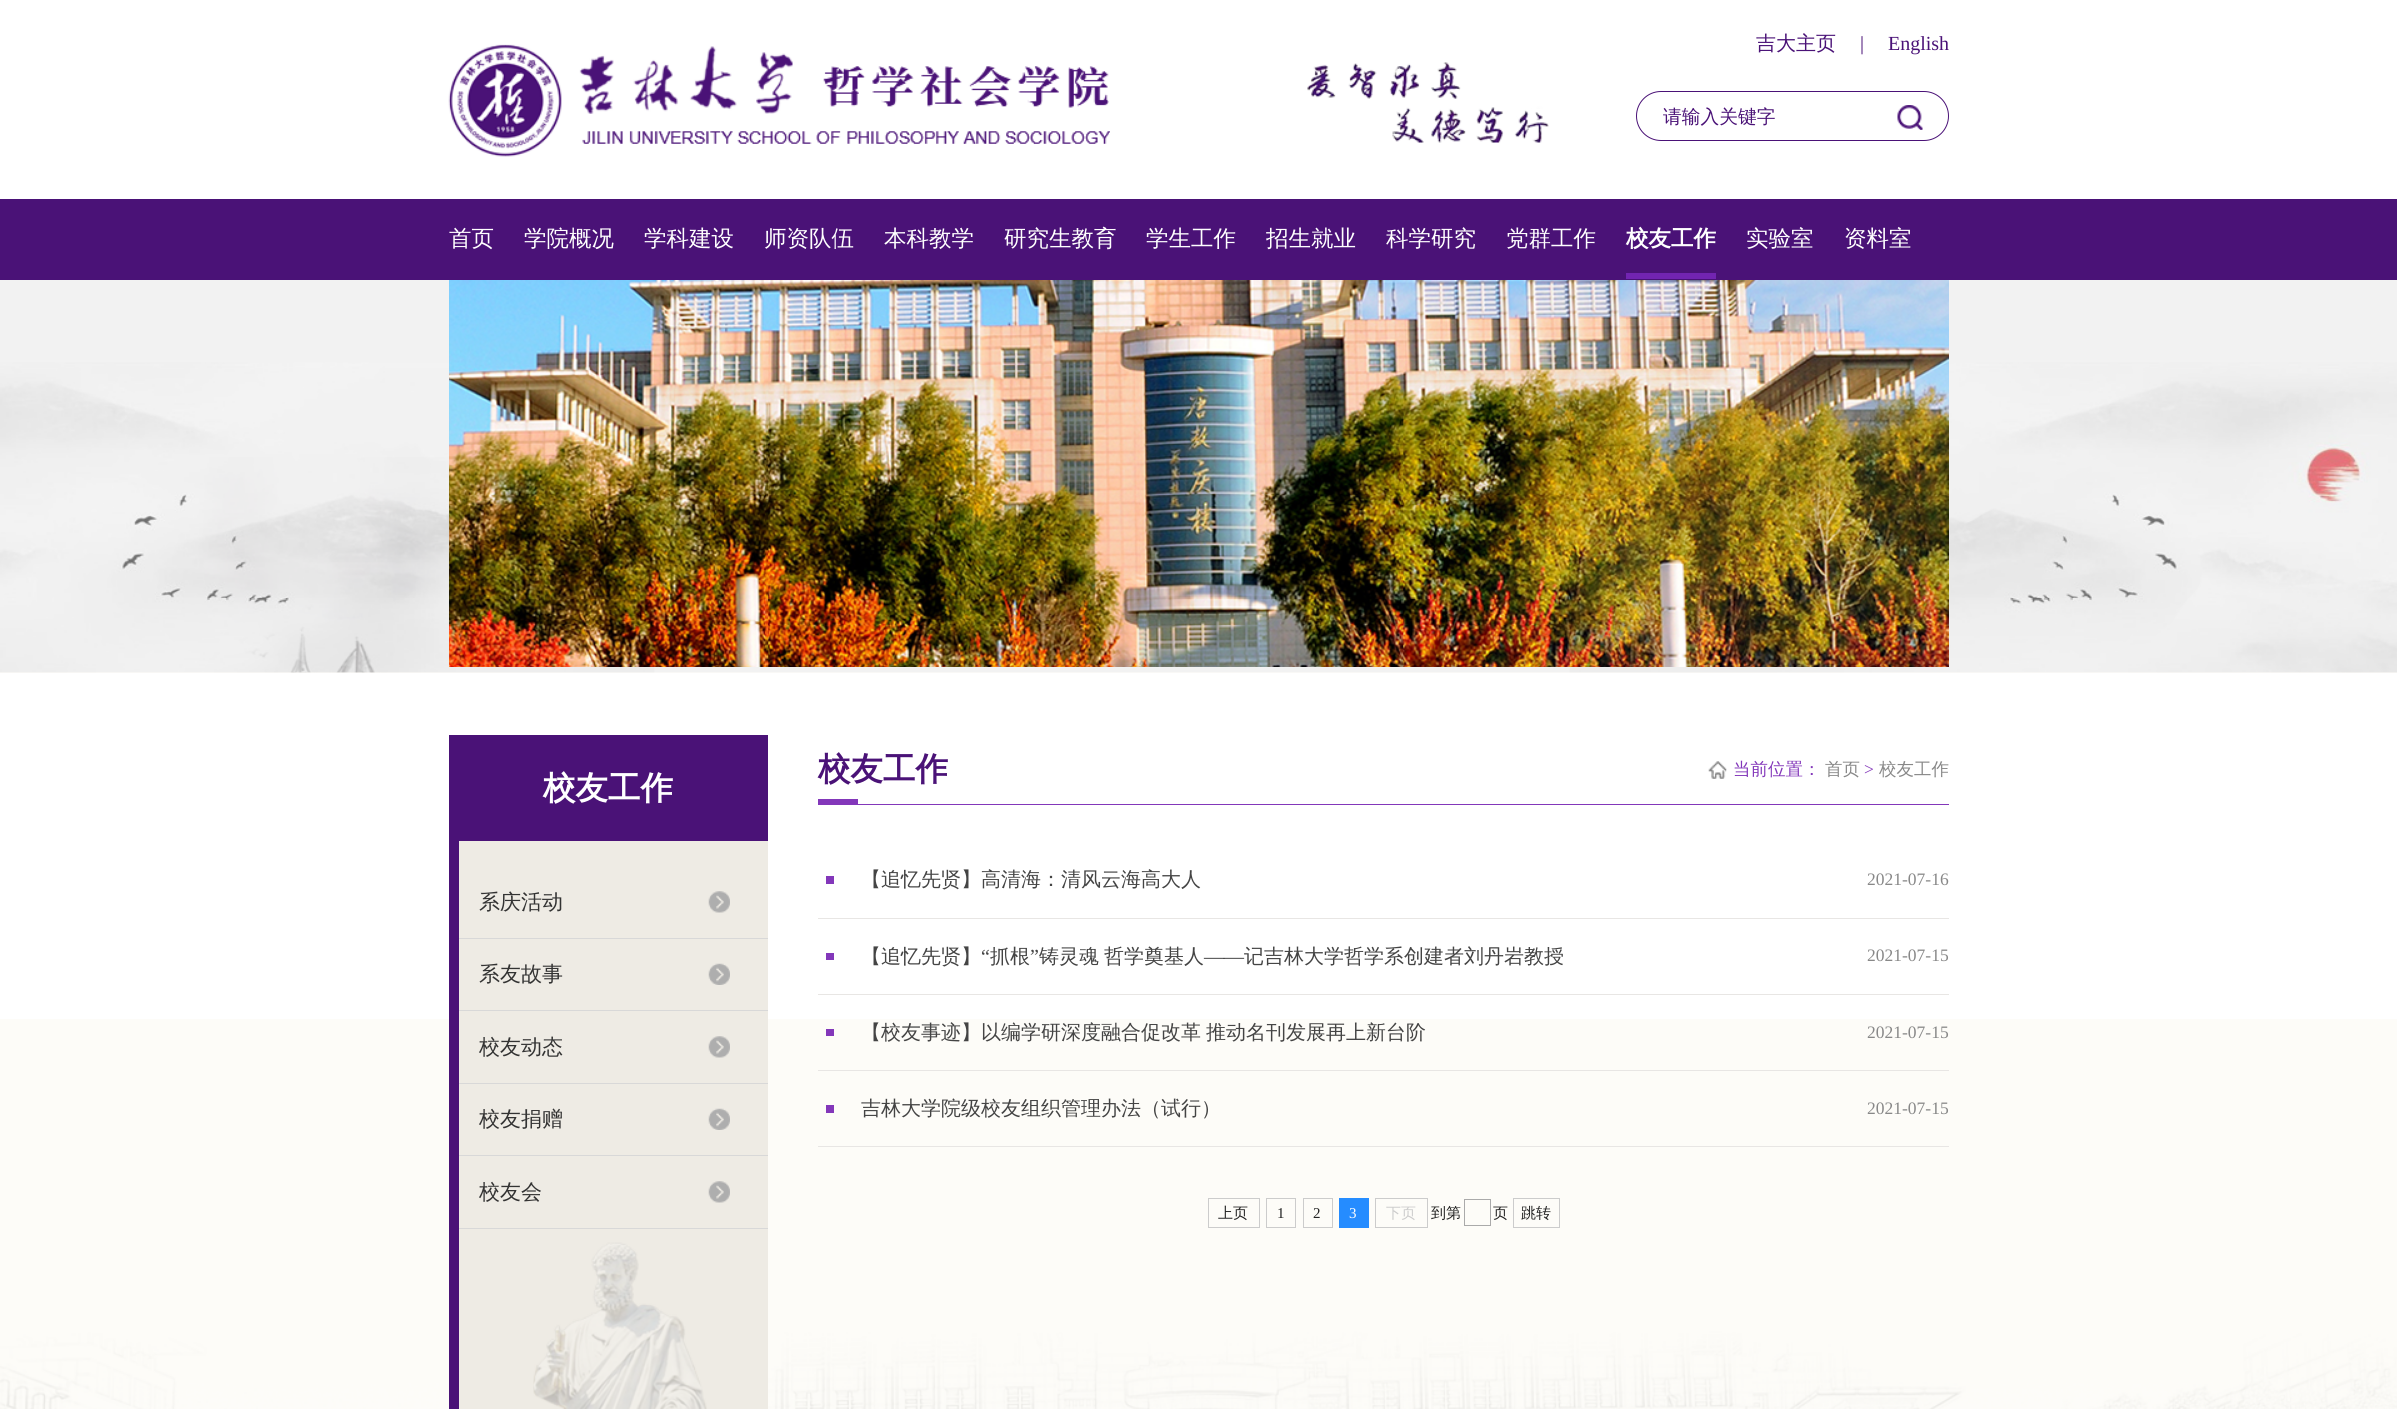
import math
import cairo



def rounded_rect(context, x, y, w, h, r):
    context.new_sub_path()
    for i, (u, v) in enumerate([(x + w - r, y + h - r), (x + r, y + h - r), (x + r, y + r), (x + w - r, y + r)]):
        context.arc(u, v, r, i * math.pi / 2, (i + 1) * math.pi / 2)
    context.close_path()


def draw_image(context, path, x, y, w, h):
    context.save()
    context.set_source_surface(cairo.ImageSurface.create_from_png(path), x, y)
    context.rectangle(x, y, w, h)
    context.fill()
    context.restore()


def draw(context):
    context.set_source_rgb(1, 1, 1)
    context.paint()
    draw_image(context, "images/1.png", 448, 44, 662, 113)
    draw_image(context, "images/2.png", 1307, 62, 242, 81)
    rounded_rect(context, 1636.5, 91.5, 312, 49, 24.5)
    context.set_source_rgb(74 / 255, 18 / 255, 119 / 255)
    context.set_line_width(1)
    context.stroke()
    draw_image(context, "images/3.png", 1897, 105, 26, 25)
    context.rectangle(0, 199, 2397, 81)
    context.fill()
    context.set_source_rgb(114 / 255, 36 / 255, 177 / 255)
    context.rectangle(1626, 273, 90, 6)
    context.fill()
    context.set_source_rgb(253 / 255, 252 / 255, 248 / 255)
    context.rectangle(0, 672, 2397, 1)
    context.fill()
    draw_image(context, "images/4.png", 0, 280, 2397, 393)
    draw_image(context, "images/5.png", 449, 280, 1500, 387)
    draw_image(context, "images/6.png", 0, 1019, 2397, 390)
    context.set_source_rgb(74 / 255, 18 / 255, 119 / 255)
    context.rectangle(449, 735, 319, 106)
    context.fill()
    context.set_source_rgb(238 / 255, 235 / 255, 228 / 255)
    context.rectangle(459, 841, 309, 568)
    context.fill()
    draw_image(context, "images/7.png", 533, 1242, 174, 167)
    context.set_source_rgb(74 / 255, 18 / 255, 119 / 255)
    context.rectangle(449, 841, 10, 568)
    context.fill()
    draw_image(context, "images/8.png", 708, 891, 22, 22)
    context.set_source_rgb(216 / 255, 216 / 255, 216 / 255)
    context.rectangle(459, 938, 309, 1)
    context.fill()
    draw_image(context, "images/9.png", 708, 963, 22, 22)
    context.rectangle(459, 1010, 309, 1)
    context.fill()
    draw_image(context, "images/8.png", 708, 1036, 22, 22)
    context.rectangle(459, 1083, 309, 1)
    context.fill()
    draw_image(context, "images/9.png", 708, 1108, 22, 22)
    context.rectangle(459, 1155, 309, 1)
    context.fill()
    draw_image(context, "images/8.png", 708, 1181, 22, 22)
    context.rectangle(459, 1228, 309, 1)
    context.fill()
    context.set_source_rgb(131 / 255, 55 / 255, 186 / 255)
    context.rectangle(818, 804, 1131, 1)
    context.fill()
    context.rectangle(818, 799, 40, 5)
    context.fill()
    draw_image(context, "images/10.png", 1708, 761, 19, 18)
    context.set_source_rgb(232 / 255, 230 / 255, 228 / 255)
    context.rectangle(818, 918, 1131, 1)
    context.fill()
    context.set_source_rgb(131 / 255, 55 / 255, 186 / 255)
    context.rectangle(826, 876, 8, 8)
    context.fill()
    context.set_source_rgb(232 / 255, 230 / 255, 228 / 255)
    context.rectangle(818, 994, 1131, 1)
    context.fill()
    context.set_source_rgb(131 / 255, 55 / 255, 186 / 255)
    context.rectangle(826, 953, 8, 7)
    context.fill()
    context.set_source_rgb(232 / 255, 230 / 255, 228 / 255)
    context.rectangle(818, 1070, 1131, 1)
    context.fill()
    context.set_source_rgb(131 / 255, 55 / 255, 186 / 255)
    context.rectangle(826, 1029, 8, 7)
    context.fill()
    context.set_source_rgb(232 / 255, 230 / 255, 228 / 255)
    context.rectangle(818, 1146, 1131, 1)
    context.fill()
    context.set_source_rgb(131 / 255, 55 / 255, 186 / 255)
    context.rectangle(826, 1105, 8, 8)
    context.fill()
    context.rectangle(1208.5, 1198.5, 51, 29)
    context.set_source_rgb(204 / 255, 204 / 255, 204 / 255)
    context.stroke()
    context.rectangle(1266.5, 1198.5, 29, 29)
    context.stroke()
    context.rectangle(1303.5, 1198.5, 29, 29)
    context.stroke()
    context.set_source_rgb(37 / 255, 140 / 255, 1)
    context.rectangle(1339, 1198, 30, 30)
    context.fill()
    context.rectangle(1375.5, 1198.5, 52, 29)
    context.set_source_rgb(204 / 255, 204 / 255, 204 / 255)
    context.stroke()
    context.rectangle(1464.5, 1199.5, 26, 26)
    context.set_source_rgb(170 / 255, 170 / 255, 170 / 255)
    context.stroke()
    context.rectangle(1513.5, 1198.5, 46, 29)
    context.set_source_rgb(204 / 255, 204 / 255, 204 / 255)
    context.stroke()
    context.select_font_face("WenQuanYi Zen Hei Medium")
    context.set_font_size(20)
    context.set_source_rgb(74 / 255, 18 / 255, 119 / 255)
    context.move_to(1756, 50)
    context.show_text("吉大主页")
    context.select_font_face("Liberation Serif")
    context.move_to(1860, 50)
    context.show_text("|")
    context.move_to(1888, 50)
    context.show_text("English")
    context.select_font_face("WenQuanYi Zen Hei Medium")
    context.set_font_size(18.75)
    context.move_to(1663, 123)
    context.show_text("请输入关键字")
    context.set_font_size(22.5)
    context.set_source_rgb(1, 1, 1)
    context.move_to(449, 246)
    context.show_text("首页")
    context.move_to(524, 246)
    context.show_text("学院概况")
    context.move_to(644, 246)
    context.show_text("学科建设")
    context.move_to(764, 246)
    context.show_text("师资队伍")
    context.move_to(884, 246)
    context.show_text("本科教学")
    context.move_to(1004, 246)
    context.show_text("研究生教育")
    context.move_to(1146, 246)
    context.show_text("学生工作")
    context.move_to(1266, 246)
    context.show_text("招生就业")
    context.move_to(1386, 246)
    context.show_text("科学研究")
    context.move_to(1506, 246)
    context.show_text("党群工作")
    context.select_font_face("WenQuanYi Zen Hei", cairo.FontSlant.NORMAL, cairo.FontWeight.BOLD)
    context.move_to(1626, 246)
    context.show_text("校友工作")
    context.select_font_face("WenQuanYi Zen Hei Medium")
    context.move_to(1746, 246)
    context.show_text("实验室")
    context.move_to(1844, 246)
    context.show_text("资料室")
    context.select_font_face("WenQuanYi Zen Hei", cairo.FontSlant.NORMAL, cairo.FontWeight.BOLD)
    context.set_font_size(32.5)
    context.move_to(543, 799)
    context.show_text("校友工作")
    context.select_font_face("WenQuanYi Zen Hei Medium")
    context.set_font_size(21)
    context.set_source_rgb(51 / 255, 51 / 255, 51 / 255)
    context.move_to(479, 909)
    context.show_text("系庆活动")
    context.move_to(479, 981)
    context.show_text("系友故事")
    context.move_to(479, 1054)
    context.show_text("校友动态")
    context.move_to(479, 1126)
    context.show_text("校友捐赠")
    context.move_to(479, 1199)
    context.show_text("校友会")
    context.select_font_face("WenQuanYi Zen Hei", cairo.FontSlant.NORMAL, cairo.FontWeight.BOLD)
    context.set_font_size(32.5)
    context.set_source_rgb(74 / 255, 18 / 255, 119 / 255)
    context.move_to(818, 780)
    context.show_text("校友工作")
    context.select_font_face("WenQuanYi Zen Hei Medium")
    context.set_font_size(17.5)
    context.set_source_rgb(131 / 255, 55 / 255, 186 / 255)
    context.move_to(1733, 775)
    context.show_text("当前位置：")
    context.set_source_rgb(136 / 255, 136 / 255, 136 / 255)
    context.move_to(1825, 775)
    context.show_text("首页")
    context.select_font_face("Liberation Serif")
    context.set_source_rgb(131 / 255, 55 / 255, 186 / 255)
    context.move_to(1864, 775)
    context.show_text(">")
    context.select_font_face("WenQuanYi Zen Hei Medium")
    context.set_source_rgb(136 / 255, 136 / 255, 136 / 255)
    context.move_to(1879, 775)
    context.show_text("校友工作")
    context.set_font_size(20)
    context.set_source_rgb(68 / 255, 68 / 255, 68 / 255)
    context.move_to(861, 886)
    context.show_text("【追忆先贤】高清海：清风云海高大人")
    context.select_font_face("Liberation Serif")
    context.set_font_size(17.5)
    context.set_source_rgb(136 / 255, 136 / 255, 136 / 255)
    context.move_to(1867, 885)
    context.show_text("2021-07-16")
    context.select_font_face("WenQuanYi Zen Hei Medium")
    context.set_font_size(20)
    context.set_source_rgb(68 / 255, 68 / 255, 68 / 255)
    context.move_to(861, 963)
    context.show_text("【追忆先贤】")
    context.select_font_face("Liberation Serif")
    context.move_to(981, 963)
    context.show_text("“")
    context.select_font_face("WenQuanYi Zen Hei Medium")
    context.move_to(990, 963)
    context.show_text("抓根")
    context.select_font_face("Liberation Serif")
    context.move_to(1030, 963)
    context.show_text("”")
    context.select_font_face("WenQuanYi Zen Hei Medium")
    context.move_to(1039, 963)
    context.show_text("铸灵魂")
    context.move_to(1104, 963)
    context.show_text("哲学奠基人")
    context.select_font_face("Liberation Serif")
    context.move_to(1204, 963)
    context.show_text("——")
    context.select_font_face("WenQuanYi Zen Hei Medium")
    context.move_to(1244, 963)
    context.show_text("记吉林大学哲学系创建者刘丹岩教授")
    context.select_font_face("Liberation Serif")
    context.set_font_size(17.5)
    context.set_source_rgb(136 / 255, 136 / 255, 136 / 255)
    context.move_to(1867, 961)
    context.show_text("2021-07-15")
    context.select_font_face("WenQuanYi Zen Hei Medium")
    context.set_font_size(20)
    context.set_source_rgb(68 / 255, 68 / 255, 68 / 255)
    context.move_to(861, 1039)
    context.show_text("【校友事迹】以编学研深度融合促改革")
    context.move_to(1206, 1039)
    context.show_text("推动名刊发展再上新台阶")
    context.select_font_face("Liberation Serif")
    context.set_font_size(17.5)
    context.set_source_rgb(136 / 255, 136 / 255, 136 / 255)
    context.move_to(1867, 1038)
    context.show_text("2021-07-15")
    context.select_font_face("WenQuanYi Zen Hei Medium")
    context.set_font_size(20)
    context.set_source_rgb(68 / 255, 68 / 255, 68 / 255)
    context.move_to(861, 1115)
    context.show_text("吉林大学院级校友组织管理办法（试行）")
    context.select_font_face("Liberation Serif")
    context.set_font_size(17.5)
    context.set_source_rgb(136 / 255, 136 / 255, 136 / 255)
    context.move_to(1867, 1114)
    context.show_text("2021-07-15")
    context.select_font_face("WenQuanYi Zen Hei Medium")
    context.set_font_size(15)
    context.set_source_rgb(34 / 255, 34 / 255, 34 / 255)
    context.move_to(1218, 1218)
    context.show_text("上页")
    context.select_font_face("Liberation Serif")
    context.move_to(1277, 1218)
    context.show_text("1")
    context.move_to(1313, 1218)
    context.show_text("2")
    context.set_source_rgb(1, 1, 1)
    context.move_to(1349, 1218)
    context.show_text("3")
    context.select_font_face("WenQuanYi Zen Hei Medium")
    context.set_source_rgb(204 / 255, 204 / 255, 204 / 255)
    context.move_to(1386, 1218)
    context.show_text("下页")
    context.set_source_rgb(34 / 255, 34 / 255, 34 / 255)
    context.move_to(1431, 1218)
    context.show_text("到第")
    context.move_to(1493, 1218)
    context.show_text("页")
    context.move_to(1521, 1218)
    context.show_text("跳转")


surface = cairo.ImageSurface(cairo.Format.RGB24, 2397, 1409)
context = cairo.Context(surface)
options = cairo.FontOptions()
options.set_hint_metrics(cairo.HintMetrics.OFF)
options.set_hint_style(cairo.HintStyle.NONE)
context.set_font_options(options)
context.set_miter_limit(4)
draw(context)
surface.write_to_png("out.png")
